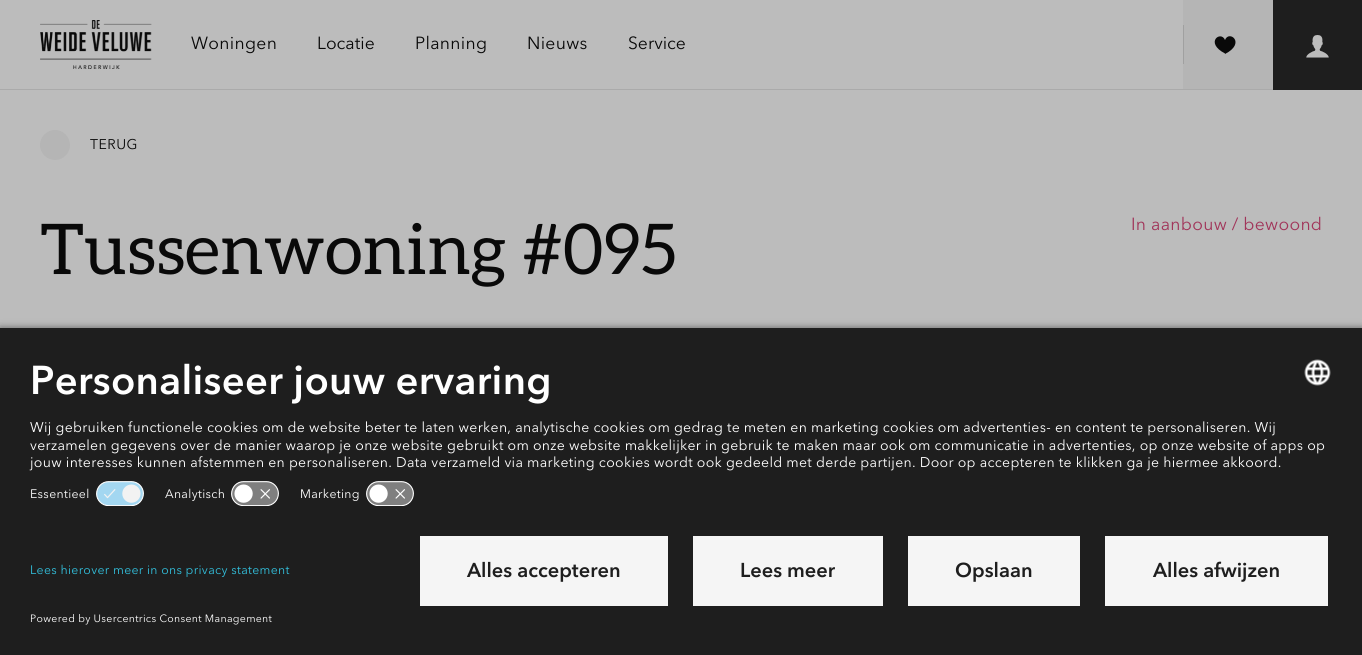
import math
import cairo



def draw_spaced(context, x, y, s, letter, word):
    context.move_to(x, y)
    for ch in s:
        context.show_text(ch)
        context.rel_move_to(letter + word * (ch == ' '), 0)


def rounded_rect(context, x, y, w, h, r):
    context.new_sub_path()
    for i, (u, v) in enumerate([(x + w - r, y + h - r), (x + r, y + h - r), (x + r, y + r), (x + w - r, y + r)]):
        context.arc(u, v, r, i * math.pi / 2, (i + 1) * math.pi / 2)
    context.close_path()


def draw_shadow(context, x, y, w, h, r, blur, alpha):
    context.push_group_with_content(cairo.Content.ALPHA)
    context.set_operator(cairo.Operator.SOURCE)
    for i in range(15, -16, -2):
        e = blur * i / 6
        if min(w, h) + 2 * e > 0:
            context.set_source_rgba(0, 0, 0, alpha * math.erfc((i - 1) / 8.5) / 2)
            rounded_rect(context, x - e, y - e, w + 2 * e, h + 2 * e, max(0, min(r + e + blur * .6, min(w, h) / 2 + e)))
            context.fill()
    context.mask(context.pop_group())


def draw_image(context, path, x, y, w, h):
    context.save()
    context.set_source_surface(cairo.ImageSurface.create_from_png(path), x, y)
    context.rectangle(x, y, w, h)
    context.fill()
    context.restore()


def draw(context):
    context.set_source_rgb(188 / 255, 188 / 255, 188 / 255)
    context.paint()
    context.set_source_rgb(170 / 255, 170 / 255, 170 / 255)
    context.rectangle(0, 89, 1273, 1)
    context.fill()
    draw_image(context, "images/1.png", 40, 20, 112, 49)
    context.set_source_rgb(181 / 255, 181 / 255, 181 / 255)
    context.rectangle(1183, 0, 90, 89)
    context.fill()
    context.set_source_rgb(160 / 255, 160 / 255, 160 / 255)
    context.rectangle(1183, 25, 1, 39)
    context.fill()
    context.set_source_rgb(9 / 255, 9 / 255, 9 / 255)
    context.new_path()
    context.move_to(1225, 54)
    context.line_to(1225, 53.5)
    context.curve_to(1204, 42.5, 1221, 30, 1225, 40)
    context.curve_to(1229, 29.5, 1246.5, 43, 1225, 54)
    context.close_path()
    context.fill()
    context.set_source_rgb(30 / 255, 30 / 255, 30 / 255)
    context.rectangle(1273, 0, 89, 90)
    context.fill()
    draw_image(context, "images/2.png", 1306, 35, 23, 23)
    context.set_source_rgb(181 / 255, 181 / 255, 181 / 255)
    context.arc(55, 145, 15, 0, 2 * math.pi)
    context.fill()
    context.set_source_rgb(0, 0, 0)
    draw_shadow(context, 0, 330, 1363, 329, 0, 4.5, 0.8)
    context.set_source_rgb(30 / 255, 30 / 255, 30 / 255)
    context.rectangle(0, 328, 1362, 327)
    context.fill()
    draw_image(context, "images/3.png", 1304, 359, 27, 27)
    draw_image(context, "images/4.png", 96, 481, 48, 25)
    draw_image(context, "images/5.png", 231, 481, 48, 25)
    draw_image(context, "images/5.png", 366, 481, 48, 25)
    context.set_source_rgb(245 / 255, 245 / 255, 245 / 255)
    context.rectangle(420, 536, 248, 70)
    context.fill()
    context.rectangle(693, 536, 190, 70)
    context.fill()
    context.rectangle(908, 536, 172, 70)
    context.fill()
    context.rectangle(1105, 536, 223, 70)
    context.fill()
    context.select_font_face("Avenir Next")
    context.set_font_size(17.5)
    context.set_source_rgb(9 / 255, 9 / 255, 9 / 255)
    draw_spaced(context, 191, 49, "Woningen", 0.31, 0)
    context.move_to(317, 49)
    context.show_text("Locatie")
    draw_spaced(context, 415, 49, "Planning", 0.31, 0)
    draw_spaced(context, 527, 49, "Nieuws", 0.31, 0)
    context.move_to(628, 49)
    context.show_text("Service")
    context.set_font_size(14)
    draw_spaced(context, 90, 149, "TERUG", 0.5, 0)
    context.select_font_face("Aleo")
    context.set_font_size(70)
    draw_spaced(context, 40, 274, "Tussenwoning #095", 0.31, 0)
    context.select_font_face("Avenir Next")
    context.set_font_size(17.5)
    context.set_source_rgb(161 / 255, 53 / 255, 90 / 255)
    draw_spaced(context, 1131, 230, "In aanbouw / bewoond", 0.31, 0)
    context.select_font_face("Avenir Next", cairo.FontSlant.NORMAL, cairo.FontWeight.BOLD)
    context.set_font_size(40)
    context.set_source_rgb(1, 1, 1)
    draw_spaced(context, 30, 394, "Personaliseer jouw ervaring", 0.31, 0)
    context.select_font_face("Avenir Next")
    context.set_font_size(14.05)
    draw_spaced(context, 30, 432, "Wij gebruiken functionele cookies om de website beter te laten werken, analytische cookies om gedrag te meten en marketing cookies om advertenties- en content te personaliseren. Wij", 0.31, 0)
    draw_spaced(context, 30, 450, "verzamelen gegevens over de manier waarop je onze website gebruikt om onze website makkelijker in gebruik te maken maar ook om communicatie in advertenties, op onze website of apps op", 0.31, 0)
    draw_spaced(context, 30, 467, "jouw interesses kunnen afstemmen en personaliseren. Data verzameld via marketing cookies wordt ook gedeeld met derde partijen. Door op accepteren te klikken ga je hiermee akkoord.", 0.31, 0)
    context.set_font_size(12.3)
    draw_spaced(context, 30, 498, "Essentieel", 0.31, 0)
    draw_spaced(context, 165, 498, "Analytisch", 0.31, 0)
    draw_spaced(context, 300, 498, "Marketing", 0.31, 0)
    context.set_source_rgb(50 / 255, 193 / 255, 222 / 255)
    draw_spaced(context, 30, 574, "Lees hierover meer in ons privacy statement", 0.31, 0)
    context.set_font_size(10.55)
    context.set_source_rgb(1, 1, 1)
    draw_spaced(context, 30, 622, "Powered by Usercentrics Consent Management", 0.31, 0)
    context.select_font_face("Avenir Next", cairo.FontSlant.NORMAL, cairo.FontWeight.BOLD)
    context.set_font_size(20)
    context.set_source_rgb(30 / 255, 30 / 255, 30 / 255)
    context.move_to(467, 577)
    context.show_text("Alles accepteren")
    context.move_to(740, 577)
    context.show_text("Lees meer")
    context.move_to(955, 577)
    context.show_text("Opslaan")
    context.move_to(1153, 577)
    context.show_text("Alles afwijzen")


surface = cairo.ImageSurface(cairo.Format.RGB24, 1362, 655)
context = cairo.Context(surface)
options = cairo.FontOptions()
options.set_hint_metrics(cairo.HintMetrics.OFF)
options.set_hint_style(cairo.HintStyle.NONE)
context.set_font_options(options)
context.set_miter_limit(4)
draw(context)
surface.write_to_png("out.png")
